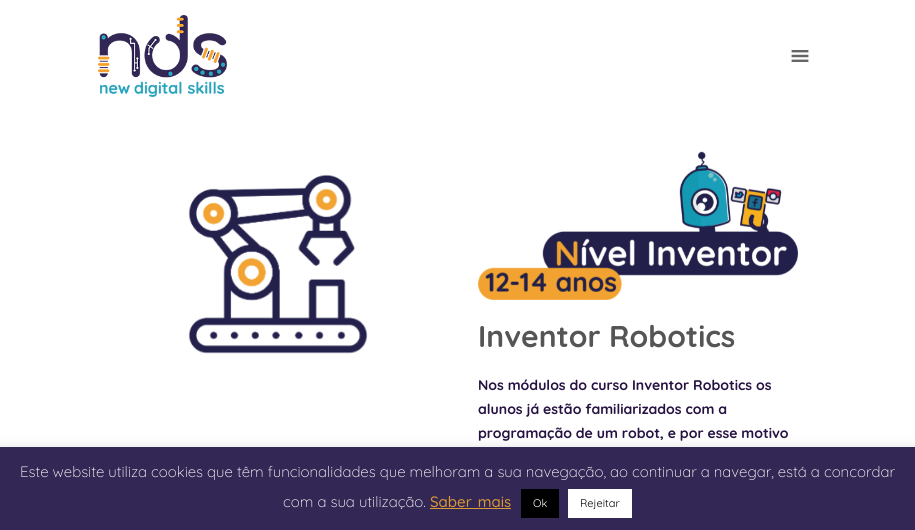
import math
import cairo



def draw_spaced(context, x, y, s, letter, word):
    context.move_to(x, y)
    for ch in s:
        context.show_text(ch)
        context.rel_move_to(letter + word * (ch == ' '), 0)


def rounded_rect(context, x, y, w, h, r):
    context.new_sub_path()
    for i, (u, v) in enumerate([(x + w - r, y + h - r), (x + r, y + h - r), (x + r, y + r), (x + w - r, y + r)]):
        context.arc(u, v, r, i * math.pi / 2, (i + 1) * math.pi / 2)
    context.close_path()


def draw_shadow(context, x, y, w, h, r, blur, alpha):
    context.push_group_with_content(cairo.Content.ALPHA)
    context.set_operator(cairo.Operator.SOURCE)
    for i in range(15, -16, -2):
        e = blur * i / 6
        if min(w, h) + 2 * e > 0:
            context.set_source_rgba(0, 0, 0, alpha * math.erfc((i - 1) / 8.5) / 2)
            rounded_rect(context, x - e, y - e, w + 2 * e, h + 2 * e, max(0, min(r + e + blur * .6, min(w, h) / 2 + e)))
            context.fill()
    context.mask(context.pop_group())


def draw_image(context, path, x, y, w, h):
    context.save()
    context.set_source_surface(cairo.ImageSurface.create_from_png(path), x, y)
    context.rectangle(x, y, w, h)
    context.fill()
    context.restore()


def draw(context):
    context.set_source_rgb(1, 1, 1)
    context.paint()
    draw_image(context, "images/1.png", 98, 15, 129, 82)
    draw_image(context, "images/2.png", 791, 50, 18, 12)
    draw_image(context, "images/3.png", 188, 174, 180, 180)
    draw_image(context, "images/4.png", 477, 151, 321, 149)
    context.set_source_rgb(172 / 255, 171 / 255, 171 / 255)
    draw_shadow(context, 0, 446, 915, 83, 0, 5, 0.3)
    context.set_source_rgb(51 / 255, 40 / 255, 85 / 255)
    context.rectangle(0, 447, 915, 83)
    context.fill()
    context.set_source_rgb(221 / 255, 153 / 255, 51 / 255)
    context.rectangle(430, 508, 81, 1)
    context.fill()
    context.set_source_rgb(0, 0, 0)
    context.rectangle(521, 489, 38, 29)
    context.fill()
    context.set_source_rgb(1, 1, 1)
    context.rectangle(568, 489, 64, 29)
    context.fill()
    context.select_font_face("Quicksand", cairo.FontSlant.NORMAL, cairo.FontWeight.BOLD)
    context.set_font_size(30)
    context.set_source_rgb(85 / 255, 85 / 255, 85 / 255)
    context.move_to(478, 347)
    context.show_text("Inventor Robotics")
    context.set_font_size(14)
    context.set_source_rgb(38 / 255, 18 / 255, 66 / 255)
    context.move_to(478, 390)
    context.show_text("Nos módulos do curso Inventor Robotics os")
    context.move_to(478, 414)
    context.show_text("alunos já estão familiarizados com a")
    context.move_to(478, 438)
    context.show_text("programação de um robot, e por esse motivo")
    context.select_font_face("Quicksand Light")
    context.set_font_size(15)
    context.set_source_rgb(1, 1, 1)
    context.move_to(20, 477)
    context.show_text("Este website utiliza cookies que têm funcionalidades que melhoram a sua navegação, ao continuar a navegar, está a concordar")
    context.move_to(283, 507)
    context.show_text("com a sua utilização.")
    context.select_font_face("Quicksand Medium")
    context.set_source_rgb(221 / 255, 153 / 255, 51 / 255)
    draw_spaced(context, 430, 507, "Saber mais", 0, 2)
    context.select_font_face("Quicksand")
    context.set_font_size(11)
    context.set_source_rgb(1, 1, 1)
    context.move_to(533, 507)
    context.show_text("Ok")
    context.set_source_rgb(0, 0, 0)
    context.move_to(580, 507)
    context.show_text("Rejeitar")


surface = cairo.ImageSurface(cairo.Format.RGB24, 915, 530)
context = cairo.Context(surface)
options = cairo.FontOptions()
options.set_hint_metrics(cairo.HintMetrics.OFF)
options.set_hint_style(cairo.HintStyle.NONE)
context.set_font_options(options)
context.set_miter_limit(4)
draw(context)
surface.write_to_png("out.png")
